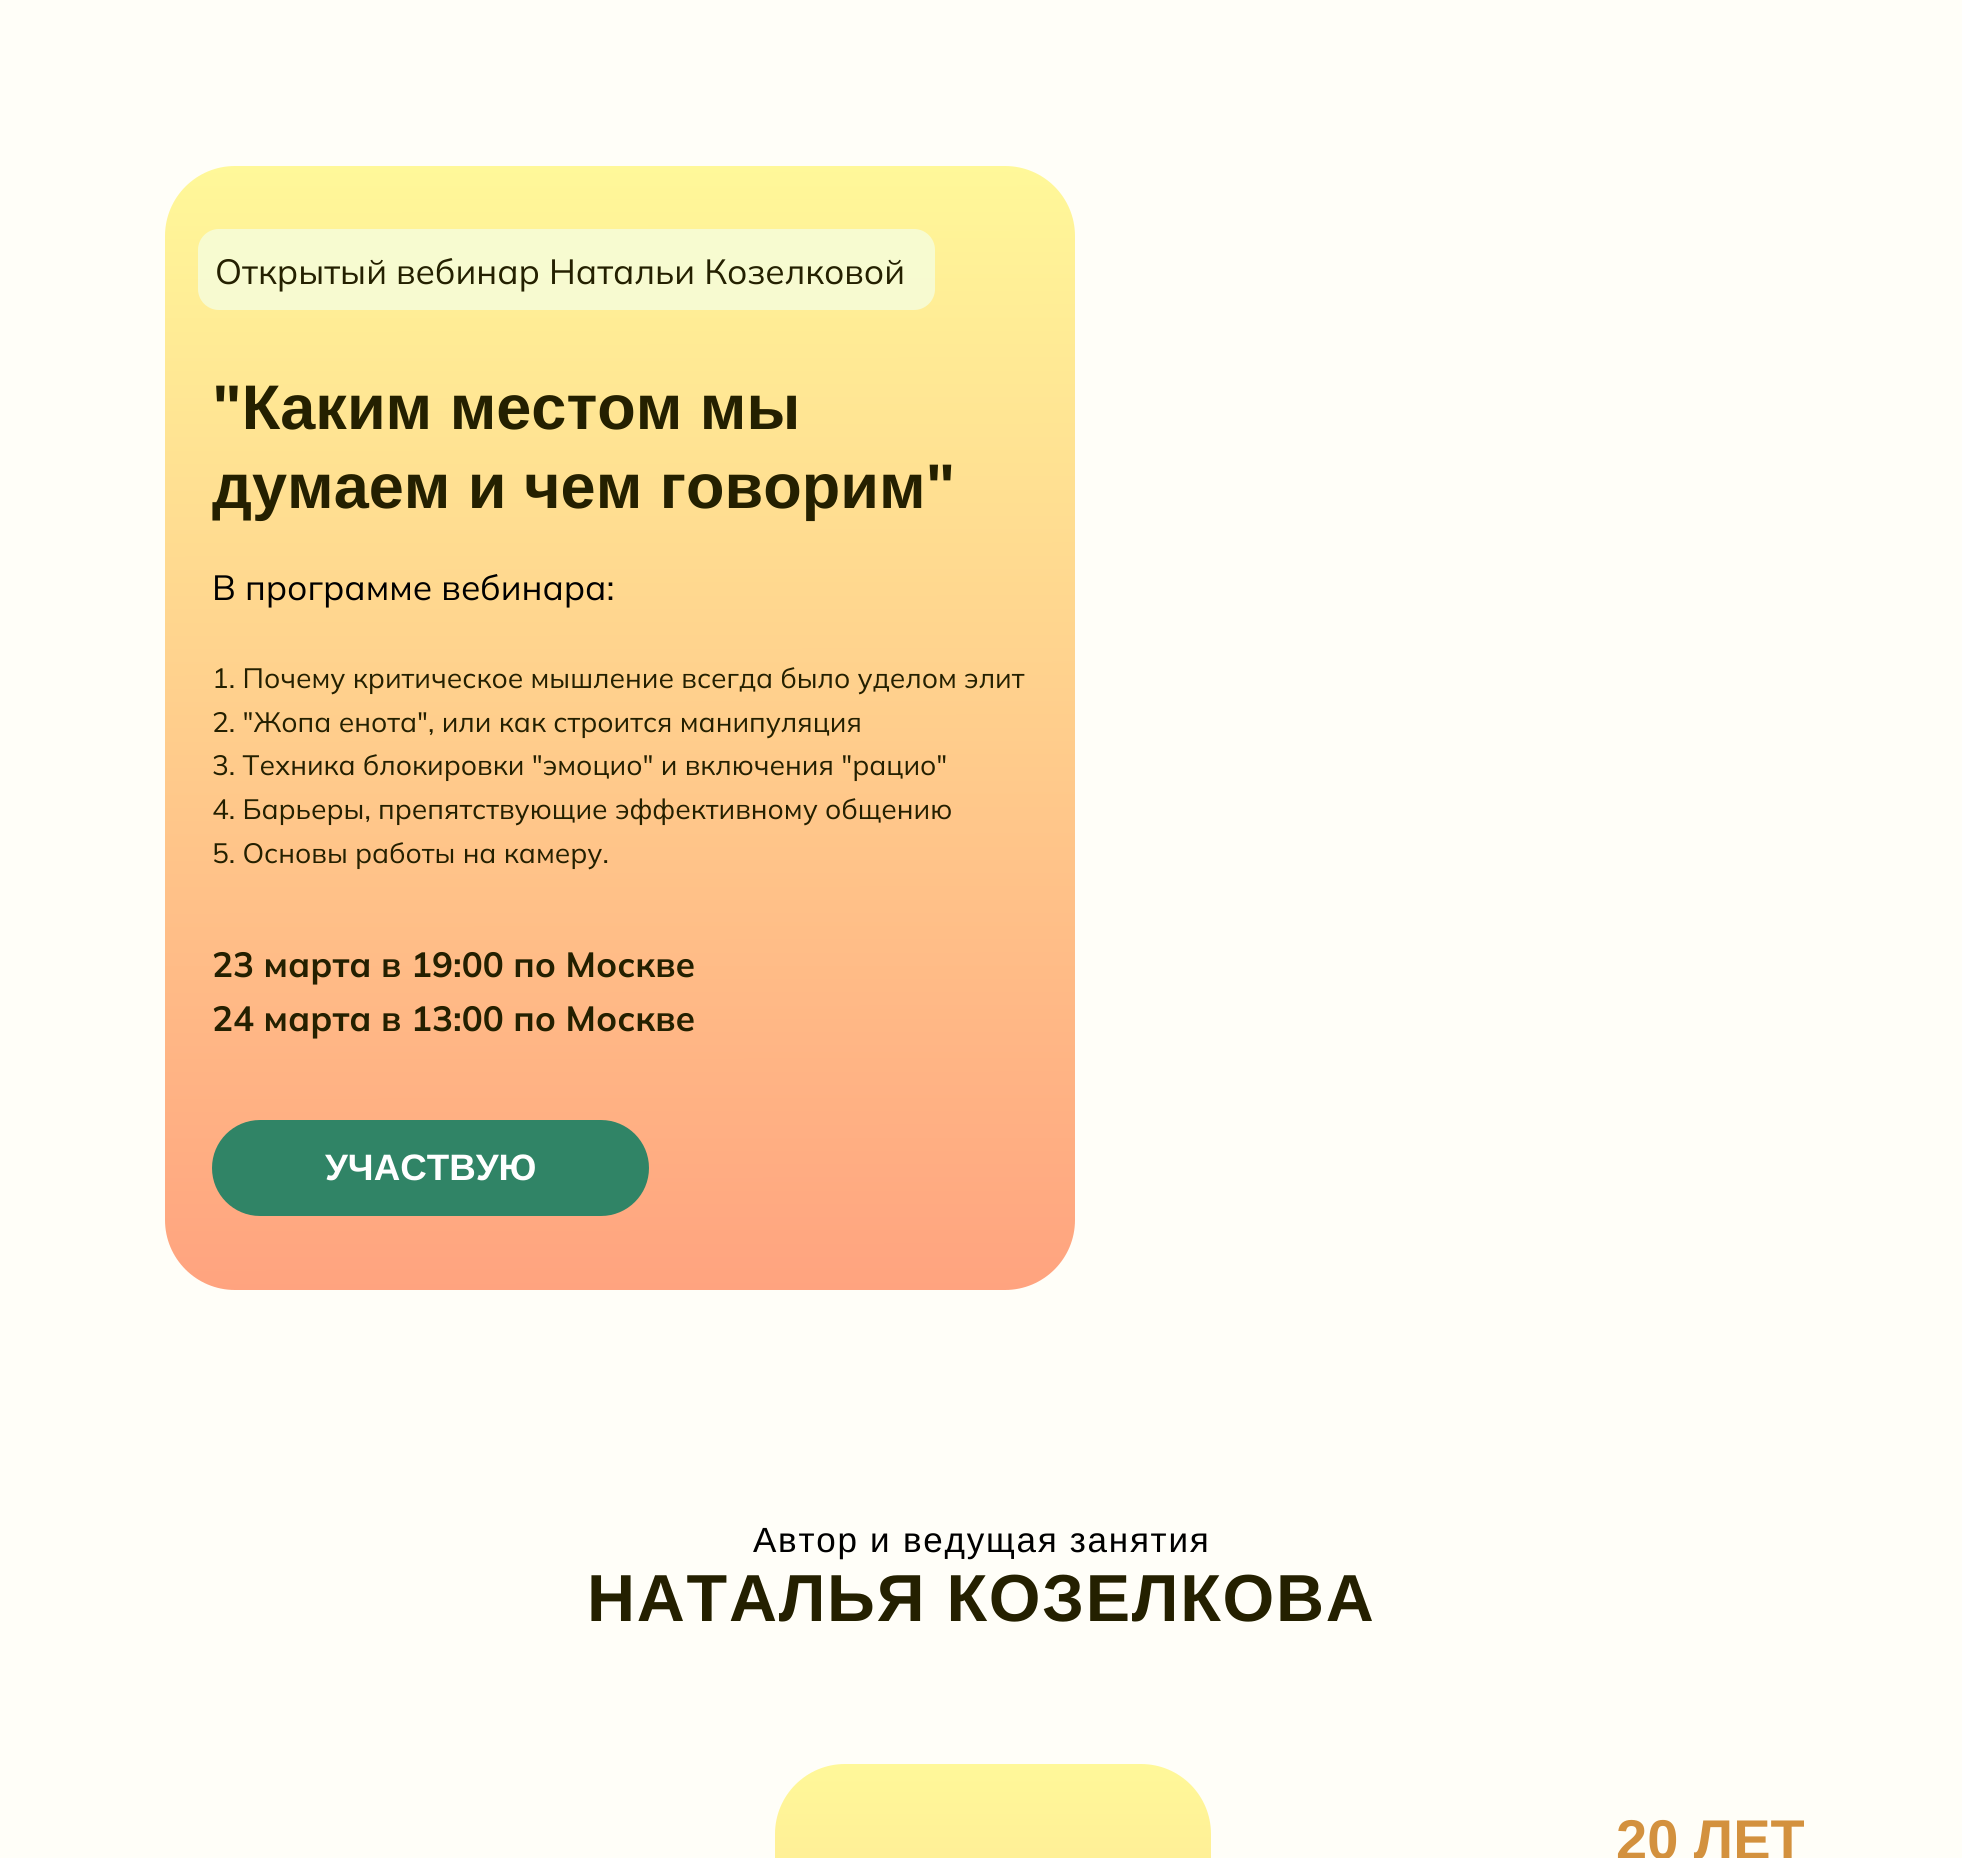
import math
import cairo



def draw_spaced(context, x, y, s, letter, word):
    context.move_to(x, y)
    for ch in s:
        context.show_text(ch)
        context.rel_move_to(letter + word * (ch == ' '), 0)


def rounded_rect(context, x, y, w, h, r):
    context.new_sub_path()
    for i, (u, v) in enumerate([(x + w - r, y + h - r), (x + r, y + h - r), (x + r, y + r), (x + w - r, y + r)]):
        context.arc(u, v, r, i * math.pi / 2, (i + 1) * math.pi / 2)
    context.close_path()


def draw(context):
    context.set_source_rgb(1, 254 / 255, 248 / 255)
    context.paint()
    gradient = cairo.LinearGradient(619, 166, 620, 1290)
    gradient.add_color_stop_rgba(0, 1, 248 / 255, 153 / 255, 1)
    gradient.add_color_stop_rgba(1, 1, 163 / 255, 127 / 255, 1)
    context.set_source(gradient)
    rounded_rect(context, 165, 166, 910, 1124, 70)
    context.fill()
    context.set_source_rgba(244 / 255, 1, 232 / 255, 0.7)
    rounded_rect(context, 198, 229, 737, 81, 21)
    context.fill()
    context.set_source_rgb(48 / 255, 132 / 255, 102 / 255)
    rounded_rect(context, 214.5, 1122.5, 432, 91, 45.5)
    context.fill_preserve()
    context.set_line_width(5)
    context.stroke()
    gradient = cairo.LinearGradient(993, 1764, 993, 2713)
    gradient.add_color_stop_rgba(0, 1, 248 / 255, 153 / 255, 1)
    gradient.add_color_stop_rgba(1, 1, 163 / 255, 127 / 255, 1)
    context.set_source(gradient)
    rounded_rect(context, 775, 1764, 436, 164, 70)
    context.fill()
    context.select_font_face("Mulish")
    context.set_font_size(35)
    context.set_source_rgb(36 / 255, 32 / 255, 0)
    context.move_to(215, 284)
    context.show_text("Открытый вебинар Натальи Козелковой")
    context.select_font_face("Liberation Sans", cairo.FontSlant.NORMAL, cairo.FontWeight.BOLD)
    context.set_font_size(63)
    context.move_to(212, 429)
    context.show_text("\"Каким местом мы")
    context.move_to(212, 508)
    context.show_text("думаем и чем говорим\"")
    context.select_font_face("Mulish")
    context.set_font_size(35)
    context.set_source_rgb(0, 0, 0)
    context.move_to(212, 600)
    context.show_text("В программе вебинара:")
    context.set_font_size(28)
    context.set_source_rgb(36 / 255, 32 / 255, 0)
    context.move_to(212, 688)
    context.show_text("1. Почему критическое мышление всегда было уделом элит")
    context.move_to(212, 732)
    context.show_text("2. \"Жопа енота\", или как строится манипуляция")
    context.move_to(212, 775)
    context.show_text("3. Техника блокировки \"эмоцио\" и включения \"рацио\"")
    context.move_to(212, 819)
    context.show_text("4. Барьеры, препятствующие эффективному общению")
    context.move_to(212, 863)
    context.show_text("5. Основы работы на камеру.")
    context.select_font_face("Mulish", cairo.FontSlant.NORMAL, cairo.FontWeight.BOLD)
    context.set_font_size(35)
    context.move_to(212, 977)
    context.show_text("23 марта в 19:00 по Москве")
    context.move_to(212, 1031)
    context.show_text("24 марта в 13:00 по Москве")
    context.select_font_face("Liberation Sans", cairo.FontSlant.NORMAL, cairo.FontWeight.BOLD)
    context.set_font_size(36.75)
    context.set_source_rgb(1, 1, 1)
    context.move_to(325, 1180)
    context.show_text("УЧАСТВУЮ")
    context.select_font_face("Liberation Sans")
    context.set_font_size(35)
    context.set_source_rgb(0, 0, 0)
    draw_spaced(context, 753, 1552, "Автор и ведущая занятия", 1.75, 0)
    context.select_font_face("Liberation Sans", cairo.FontSlant.NORMAL, cairo.FontWeight.BOLD)
    context.set_font_size(66.5)
    context.set_source_rgb(36 / 255, 32 / 255, 0)
    draw_spaced(context, 587, 1621, "НАТАЛЬЯ КОЗЕЛКОВА", 1.75, 0)
    context.set_font_size(56)
    context.set_source_rgb(211 / 255, 145 / 255, 62 / 255)
    context.move_to(1616, 1859)
    context.show_text("20 ЛЕТ")


surface = cairo.ImageSurface(cairo.Format.RGB24, 1962, 1858)
context = cairo.Context(surface)
options = cairo.FontOptions()
options.set_hint_metrics(cairo.HintMetrics.OFF)
options.set_hint_style(cairo.HintStyle.NONE)
context.set_font_options(options)
context.set_miter_limit(4)
draw(context)
surface.write_to_png("out.png")
